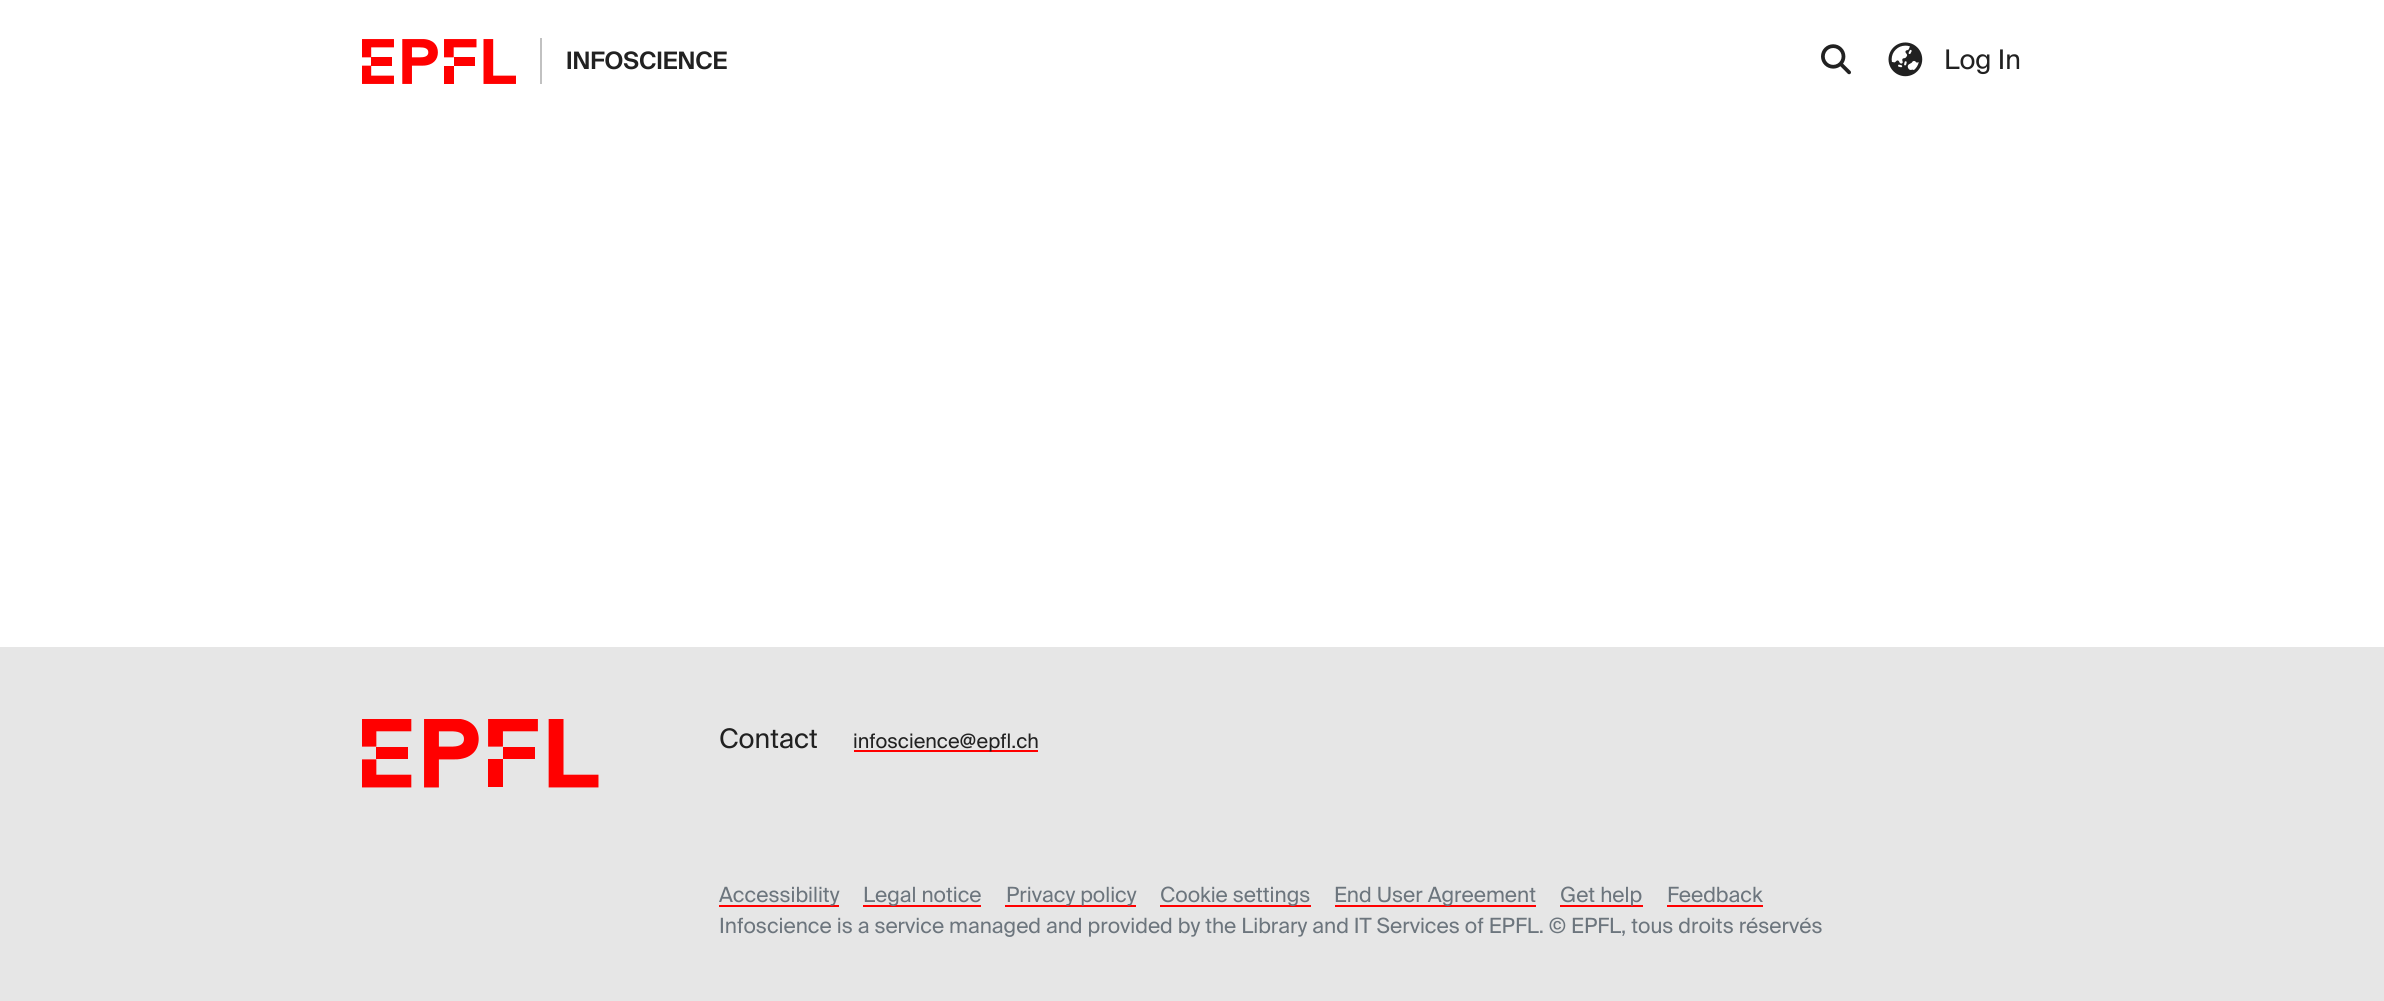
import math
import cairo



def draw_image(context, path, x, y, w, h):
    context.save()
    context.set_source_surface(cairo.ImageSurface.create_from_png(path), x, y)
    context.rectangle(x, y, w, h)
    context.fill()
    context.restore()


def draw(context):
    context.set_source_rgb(1, 1, 1)
    context.paint()
    context.set_source_rgb(193 / 255, 193 / 255, 193 / 255)
    context.rectangle(540, 38, 2, 46)
    context.fill()
    draw_image(context, "images/1.png", 362, 39, 154, 45)
    draw_image(context, "images/2.png", 1821, 44, 30, 31)
    draw_image(context, "images/3.png", 1888, 42, 35, 35)
    context.set_source_rgb(230 / 255, 230 / 255, 230 / 255)
    context.rectangle(0, 647, 2384, 354)
    context.fill()
    draw_image(context, "images/4.png", 362, 719, 237, 69)
    context.set_source_rgb(1, 0, 0)
    context.rectangle(854, 750, 184, 2)
    context.fill()
    context.rectangle(719, 905, 120, 2)
    context.fill()
    context.rectangle(863, 905, 118, 2)
    context.fill()
    context.rectangle(1005, 905, 131, 2)
    context.fill()
    context.rectangle(1160, 905, 151, 2)
    context.fill()
    context.rectangle(1335, 905, 201, 2)
    context.fill()
    context.rectangle(1560, 905, 83, 2)
    context.fill()
    context.rectangle(1667, 905, 96, 2)
    context.fill()
    context.select_font_face("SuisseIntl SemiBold")
    context.set_font_size(24)
    context.set_source_rgb(33 / 255, 33 / 255, 33 / 255)
    context.move_to(566, 69)
    context.show_text("INFOSCIENCE")
    context.select_font_face("SuisseIntl")
    context.set_font_size(27)
    context.move_to(1944, 69)
    context.show_text("Log In")
    context.move_to(719, 748)
    context.show_text("Contact")
    context.set_font_size(20)
    context.move_to(853, 748)
    context.show_text("infoscience@epfl.ch")
    context.set_font_size(21)
    context.set_source_rgb(108 / 255, 117 / 255, 125 / 255)
    context.move_to(719, 902)
    context.show_text("Accessibility")
    context.move_to(863, 902)
    context.show_text("Legal notice")
    context.move_to(1006, 902)
    context.show_text("Privacy policy")
    context.move_to(1160, 902)
    context.show_text("Cookie settings")
    context.move_to(1334, 902)
    context.show_text("End User Agreement")
    context.move_to(1560, 902)
    context.show_text("Get help")
    context.move_to(1667, 902)
    context.show_text("Feedback")
    context.move_to(719, 933)
    context.show_text("Infoscience is a service managed and provided by the Library and IT Services of EPFL. © EPFL, tous droits réservés")


surface = cairo.ImageSurface(cairo.Format.RGB24, 2384, 1001)
context = cairo.Context(surface)
options = cairo.FontOptions()
options.set_hint_metrics(cairo.HintMetrics.OFF)
options.set_hint_style(cairo.HintStyle.NONE)
context.set_font_options(options)
context.set_miter_limit(4)
draw(context)
surface.write_to_png("out.png")
